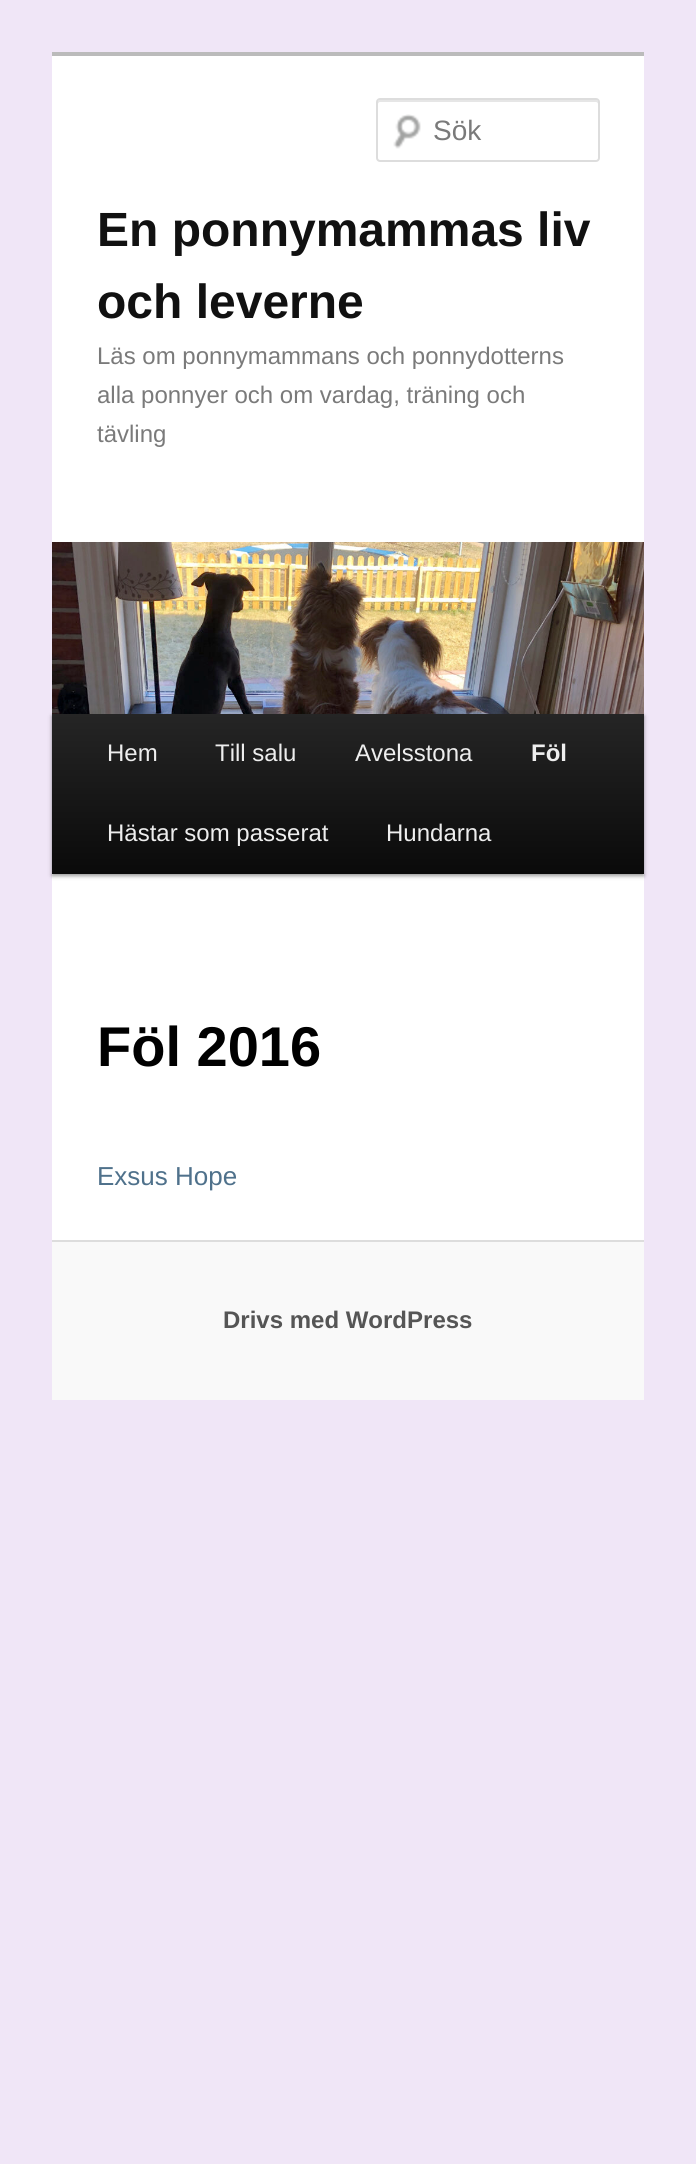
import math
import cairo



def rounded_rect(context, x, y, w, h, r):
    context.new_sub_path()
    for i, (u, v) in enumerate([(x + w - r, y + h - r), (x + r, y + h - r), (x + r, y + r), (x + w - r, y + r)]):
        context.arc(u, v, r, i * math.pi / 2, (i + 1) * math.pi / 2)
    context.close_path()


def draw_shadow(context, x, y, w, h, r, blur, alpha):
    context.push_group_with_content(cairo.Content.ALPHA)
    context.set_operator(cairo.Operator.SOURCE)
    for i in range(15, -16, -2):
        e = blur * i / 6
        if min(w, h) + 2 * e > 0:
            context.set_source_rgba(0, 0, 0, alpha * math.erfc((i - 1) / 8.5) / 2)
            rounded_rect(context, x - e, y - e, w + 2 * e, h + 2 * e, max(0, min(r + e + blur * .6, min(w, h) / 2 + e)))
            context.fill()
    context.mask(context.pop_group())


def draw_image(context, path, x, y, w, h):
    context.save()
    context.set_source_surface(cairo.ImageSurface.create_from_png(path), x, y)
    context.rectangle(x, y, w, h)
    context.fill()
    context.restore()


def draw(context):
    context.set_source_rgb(240 / 255, 230 / 255, 247 / 255)
    context.paint()
    context.set_source_rgb(1, 1, 1)
    context.rectangle(52, 56, 592, 1184)
    context.fill()
    context.set_source_rgb(187 / 255, 187 / 255, 187 / 255)
    context.rectangle(52, 52, 592, 4)
    context.fill()
    draw_image(context, "images/1.png", 393, 114, 28, 35)
    context.set_source_rgb(230 / 255, 230 / 255, 230 / 255)
    context.new_path()
    context.move_to(380, 102)
    context.line_to(596, 102)
    context.curve_to(597, 102, 598, 103, 598, 104)
    context.line_to(598, 102)
    context.curve_to(598, 101, 597, 100, 596, 100)
    context.line_to(380, 100)
    context.curve_to(379, 100, 378, 101, 378, 102)
    context.line_to(378, 104)
    context.curve_to(378, 103, 379, 102, 380, 102)
    context.close_path()
    context.fill()
    rounded_rect(context, 377, 99, 222, 62, 3)
    context.set_source_rgb(221 / 255, 221 / 255, 221 / 255)
    context.stroke()
    context.set_source_rgb(0, 0, 0)
    draw_shadow(context, 52, 716, 592, 160, 0, 2, 0.4)
    draw_image(context, "images/2.png", 52, 542, 592, 172)
    gradient = cairo.LinearGradient(348, 714, 348, 874)
    gradient.add_color_stop_rgba(0, 37 / 255, 37 / 255, 37 / 255, 1)
    gradient.add_color_stop_rgba(1, 10 / 255, 10 / 255, 10 / 255, 1)
    context.set_source(gradient)
    context.rectangle(52, 714, 592, 160)
    context.fill()
    context.set_source_rgb(249 / 255, 249 / 255, 249 / 255)
    context.rectangle(52, 1242, 592, 158)
    context.fill()
    context.set_source_rgb(221 / 255, 221 / 255, 221 / 255)
    context.rectangle(52, 1240, 592, 2)
    context.fill()
    context.select_font_face("Liberation Sans")
    context.set_font_size(28)
    context.set_source_rgb(122 / 255, 122 / 255, 122 / 255)
    context.move_to(433, 140)
    context.show_text("Sök")
    context.select_font_face("Liberation Sans", cairo.FontSlant.NORMAL, cairo.FontWeight.BOLD)
    context.set_font_size(48)
    context.set_source_rgb(17 / 255, 17 / 255, 17 / 255)
    context.move_to(97, 246)
    context.show_text("En ponnymammas liv")
    context.move_to(97, 318)
    context.show_text("och leverne")
    context.select_font_face("Liberation Sans")
    context.set_font_size(24)
    context.set_source_rgb(122 / 255, 122 / 255, 122 / 255)
    context.move_to(97, 364)
    context.show_text("Läs om ponnymammans och ponnydotterns")
    context.move_to(97, 403)
    context.show_text("alla ponnyer och om vardag, träning och")
    context.move_to(97, 442)
    context.show_text("tävling")
    context.set_source_rgb(238 / 255, 238 / 255, 238 / 255)
    context.move_to(107, 761)
    context.show_text("Hem")
    context.move_to(215, 761)
    context.show_text("Till salu")
    context.move_to(355, 761)
    context.show_text("Avelsstona")
    context.select_font_face("Liberation Sans", cairo.FontSlant.NORMAL, cairo.FontWeight.BOLD)
    context.move_to(531, 761)
    context.show_text("Föl")
    context.select_font_face("Liberation Sans")
    context.move_to(107, 841)
    context.show_text("Hästar som passerat")
    context.move_to(386, 841)
    context.show_text("Hundarna")
    context.select_font_face("Liberation Sans", cairo.FontSlant.NORMAL, cairo.FontWeight.BOLD)
    context.set_font_size(56)
    context.set_source_rgb(0, 0, 0)
    context.move_to(97, 1066)
    context.show_text("Föl 2016")
    context.select_font_face("Liberation Sans")
    context.set_font_size(26)
    context.set_source_rgb(79 / 255, 113 / 255, 139 / 255)
    context.move_to(97, 1185)
    context.show_text("Exsus Hope")
    context.select_font_face("Liberation Sans", cairo.FontSlant.NORMAL, cairo.FontWeight.BOLD)
    context.set_font_size(24)
    context.set_source_rgb(85 / 255, 85 / 255, 85 / 255)
    context.move_to(223, 1328)
    context.show_text("Drivs med WordPress")


surface = cairo.ImageSurface(cairo.Format.RGB24, 696, 2164)
context = cairo.Context(surface)
options = cairo.FontOptions()
options.set_hint_metrics(cairo.HintMetrics.OFF)
options.set_hint_style(cairo.HintStyle.NONE)
context.set_font_options(options)
context.set_miter_limit(4)
draw(context)
surface.write_to_png("out.png")
